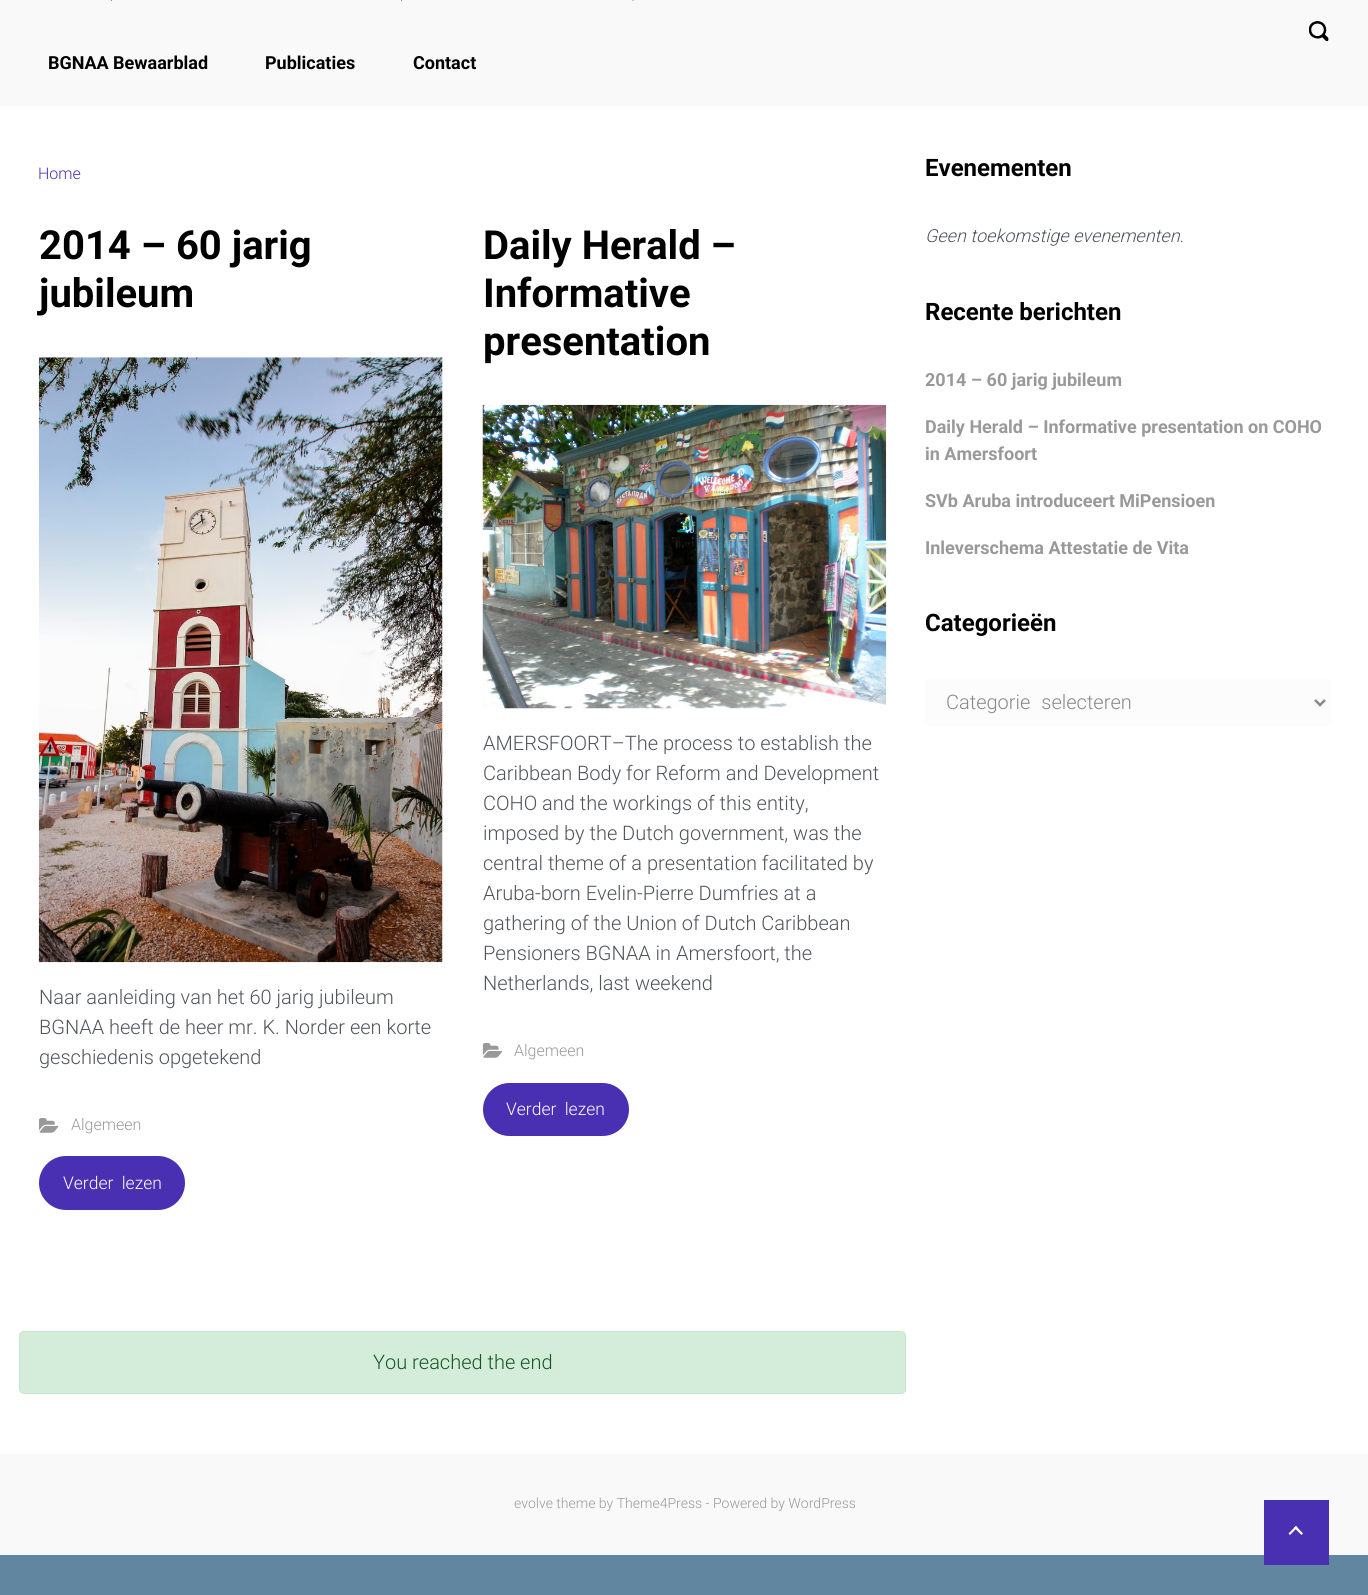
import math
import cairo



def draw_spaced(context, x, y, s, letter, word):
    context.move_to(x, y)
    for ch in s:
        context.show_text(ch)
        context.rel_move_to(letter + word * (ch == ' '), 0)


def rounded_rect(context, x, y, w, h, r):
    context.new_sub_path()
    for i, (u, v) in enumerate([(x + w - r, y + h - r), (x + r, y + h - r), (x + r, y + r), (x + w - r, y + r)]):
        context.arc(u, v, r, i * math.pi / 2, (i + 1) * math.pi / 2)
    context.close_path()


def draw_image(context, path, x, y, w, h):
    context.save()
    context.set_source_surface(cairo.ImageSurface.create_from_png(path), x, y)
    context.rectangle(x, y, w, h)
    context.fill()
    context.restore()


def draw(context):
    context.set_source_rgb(97 / 255, 135 / 255, 160 / 255)
    context.paint()
    context.set_source_rgb(249 / 255, 249 / 255, 249 / 255)
    context.rectangle(0, 0, 1368, 1555)
    context.fill()
    draw_image(context, "images/1.png", 1309, 21, 20, 20)
    context.set_source_rgb(0, 0, 0)
    context.new_path()
    context.move_to(115.5, -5)
    context.line_to(116.5, -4)
    context.line_to(111.5, 0.5)
    context.line_to(110.5, -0.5)
    context.close_path()
    context.fill()
    context.new_path()
    context.move_to(108, -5)
    context.line_to(112.5, -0.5)
    context.line_to(111.5, 0.5)
    context.line_to(107, -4)
    context.close_path()
    context.fill()
    context.new_path()
    context.move_to(405, -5)
    context.line_to(406, -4)
    context.line_to(401.5, 0.5)
    context.line_to(400.5, -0.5)
    context.close_path()
    context.fill()
    context.new_path()
    context.move_to(397.5, -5)
    context.line_to(402.5, -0.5)
    context.line_to(401.5, 0.5)
    context.line_to(396.5, -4)
    context.close_path()
    context.fill()
    context.new_path()
    context.move_to(637, -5)
    context.line_to(638, -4)
    context.line_to(633, 0.5)
    context.line_to(632.5, -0.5)
    context.close_path()
    context.fill()
    context.new_path()
    context.move_to(629.5, -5)
    context.line_to(634, -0.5)
    context.line_to(633, 0.5)
    context.line_to(628.5, -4)
    context.close_path()
    context.fill()
    context.set_source_rgb(1, 1, 1)
    context.rectangle(0, 106, 1368, 1348)
    context.fill()
    draw_image(context, "images/2.png", 38, 357, 405, 606)
    draw_image(context, "images/3.png", 39, 1118, 20, 15)
    context.set_source_rgb(73 / 255, 47 / 255, 177 / 255)
    rounded_rect(context, 41, 1158, 142, 50, 25)
    context.fill_preserve()
    context.set_line_width(4)
    context.stroke()
    draw_image(context, "images/4.png", 482, 404, 405, 305)
    draw_image(context, "images/5.png", 482, 1043, 20, 15)
    rounded_rect(context, 485, 1085, 142, 49, 24.5)
    context.fill_preserve()
    context.stroke()
    context.set_source_rgb(212 / 255, 237 / 255, 218 / 255)
    rounded_rect(context, 19.5, 1331.5, 886, 62, 4.5)
    context.fill_preserve()
    context.set_source_rgb(195 / 255, 230 / 255, 203 / 255)
    context.set_line_width(1)
    context.stroke()
    context.set_source_rgb(252 / 255, 252 / 255, 252 / 255)
    rounded_rect(context, 925.5, 679.5, 405, 46, 4.5)
    context.fill_preserve()
    context.stroke()
    context.new_path()
    context.move_to(1315, 700)
    context.line_to(1320, 705)
    context.line_to(1325, 700)
    context.set_source_rgb(136 / 255, 136 / 255, 136 / 255)
    context.set_line_width(2.5)
    context.stroke()
    context.set_source_rgb(73 / 255, 47 / 255, 177 / 255)
    context.rectangle(1264, 1500, 65, 65)
    context.fill()
    context.set_source_rgb(1, 1, 1)
    context.new_path()
    context.move_to(1288.5, 1533.5)
    context.line_to(1296, 1526)
    context.line_to(1297.5, 1527.5)
    context.line_to(1290, 1535)
    context.close_path()
    context.fill()
    context.new_path()
    context.move_to(1294, 1527.5)
    context.line_to(1296, 1526)
    context.line_to(1303, 1533.5)
    context.line_to(1301.5, 1535)
    context.close_path()
    context.fill()
    context.select_font_face("Roboto", cairo.FontSlant.NORMAL, cairo.FontWeight.BOLD)
    context.set_font_size(18)
    context.set_source_rgb(0, 0, 0)
    context.move_to(48, 69)
    context.show_text("BGNAA Bewaarblad")
    context.move_to(265, 69)
    context.show_text("Publicaties")
    context.move_to(413, 69)
    context.show_text("Contact")
    context.select_font_face("Roboto Light")
    context.set_font_size(16)
    context.set_source_rgb(73 / 255, 47 / 255, 177 / 255)
    context.move_to(38, 179)
    context.show_text("Home")
    context.select_font_face("Roboto", cairo.FontSlant.NORMAL, cairo.FontWeight.BOLD)
    context.set_font_size(40)
    context.set_source_rgb(0, 0, 0)
    context.move_to(39, 259)
    context.show_text("2014 – 60 jarig")
    context.move_to(39, 307)
    context.show_text("jubileum")
    context.select_font_face("Roboto Light")
    context.set_font_size(20)
    context.set_source_rgb(81 / 255, 84 / 255, 92 / 255)
    context.move_to(39, 1004)
    context.show_text("Naar aanleiding van het 60 jarig jubileum")
    context.move_to(39, 1034)
    context.show_text("BGNAA heeft de heer mr. K. Norder een korte")
    context.move_to(39, 1064)
    context.show_text("geschiedenis opgetekend")
    context.set_font_size(16)
    context.set_source_rgb(153 / 255, 153 / 255, 153 / 255)
    context.move_to(71, 1130)
    context.show_text("Algemeen")
    context.set_font_size(17.5)
    context.set_source_rgb(1, 1, 1)
    draw_spaced(context, 63, 1189, "Verder lezen", 0, 4)
    context.select_font_face("Roboto", cairo.FontSlant.NORMAL, cairo.FontWeight.BOLD)
    context.set_font_size(40)
    context.set_source_rgb(0, 0, 0)
    context.move_to(483, 259)
    context.show_text("Daily Herald –")
    context.move_to(483, 307)
    context.show_text("Informative")
    context.move_to(483, 355)
    context.show_text("presentation")
    context.select_font_face("Roboto Light")
    context.set_font_size(20)
    context.set_source_rgb(81 / 255, 84 / 255, 92 / 255)
    context.move_to(483, 750)
    context.show_text("AMERSFOORT–The process to establish the")
    context.move_to(483, 780)
    context.show_text("Caribbean Body for Reform and Development")
    context.move_to(483, 810)
    context.show_text("COHO and the workings of this entity,")
    context.move_to(483, 840)
    context.show_text("imposed by the Dutch government, was the")
    context.move_to(483, 870)
    context.show_text("central theme of a presentation facilitated by")
    context.move_to(483, 900)
    context.show_text("Aruba-born Evelin-Pierre Dumfries at a")
    context.move_to(483, 930)
    context.show_text("gathering of the Union of Dutch Caribbean")
    context.move_to(483, 960)
    context.show_text("Pensioners BGNAA in Amersfoort, the")
    context.move_to(483, 990)
    context.show_text("Netherlands, last weekend")
    context.set_font_size(16)
    context.set_source_rgb(153 / 255, 153 / 255, 153 / 255)
    context.move_to(514, 1056)
    context.show_text("Algemeen")
    context.set_font_size(17.5)
    context.set_source_rgb(1, 1, 1)
    draw_spaced(context, 506, 1115, "Verder lezen", 0, 4)
    context.set_font_size(20)
    context.set_source_rgb(21 / 255, 87 / 255, 36 / 255)
    context.move_to(373, 1369)
    context.show_text("You reached the end")
    context.select_font_face("Roboto", cairo.FontSlant.NORMAL, cairo.FontWeight.BOLD)
    context.set_font_size(24)
    context.set_source_rgb(0, 0, 0)
    context.move_to(925, 176)
    context.show_text("Evenementen")
    context.select_font_face("Roboto Light", cairo.FontSlant.ITALIC)
    context.set_font_size(18)
    context.set_source_rgb(81 / 255, 84 / 255, 92 / 255)
    context.move_to(925, 242)
    context.show_text("Geen toekomstige evenementen.")
    context.select_font_face("Roboto", cairo.FontSlant.NORMAL, cairo.FontWeight.BOLD)
    context.set_font_size(24)
    context.set_source_rgb(0, 0, 0)
    context.move_to(925, 320)
    context.show_text("Recente berichten")
    context.set_font_size(18)
    context.set_source_rgb(153 / 255, 153 / 255, 153 / 255)
    context.move_to(925, 386)
    context.show_text("2014 – 60 jarig jubileum")
    context.move_to(925, 433)
    context.show_text("Daily Herald – Informative presentation on COHO")
    context.move_to(925, 460)
    context.show_text("in Amersfoort")
    context.move_to(925, 507)
    context.show_text("SVb Aruba introduceert MiPensioen")
    context.move_to(925, 554)
    context.show_text("Inleverschema Attestatie de Vita")
    context.set_font_size(24)
    context.set_source_rgb(0, 0, 0)
    context.move_to(925, 631)
    context.show_text("Categorieën")
    context.select_font_face("Roboto Light")
    context.set_font_size(20)
    context.set_source_rgb(136 / 255, 136 / 255, 136 / 255)
    draw_spaced(context, 946, 709, "Categorie selecteren", 0, 6)
    context.set_font_size(14)
    context.set_source_rgb(153 / 255, 153 / 255, 153 / 255)
    context.move_to(514, 1508)
    context.show_text("evolve theme by Theme4Press - Powered by WordPress")


surface = cairo.ImageSurface(cairo.Format.RGB24, 1368, 1595)
context = cairo.Context(surface)
options = cairo.FontOptions()
options.set_hint_metrics(cairo.HintMetrics.OFF)
options.set_hint_style(cairo.HintStyle.NONE)
context.set_font_options(options)
context.set_miter_limit(4)
draw(context)
surface.write_to_png("out.png")
